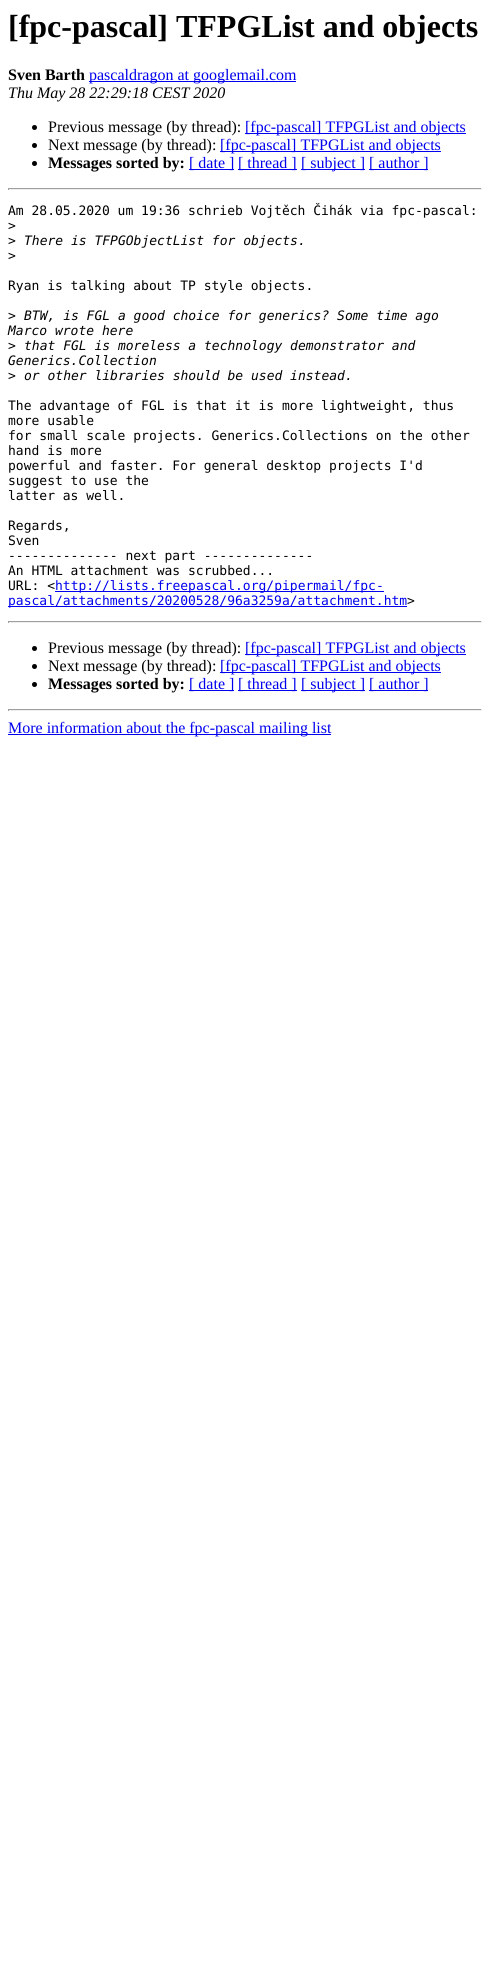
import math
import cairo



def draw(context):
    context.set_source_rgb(1, 1, 1)
    context.paint()
    context.set_source_rgb(0, 0, 238 / 255)
    context.rectangle(89, 81, 207, 1)
    context.fill()
    context.set_source_rgb(0, 0, 0)
    context.arc(34.5, 127.5, 2.5, 0, 2 * math.pi)
    context.fill()
    context.set_source_rgb(0, 0, 238 / 255)
    context.rectangle(245, 133, 221, 1)
    context.fill()
    context.set_source_rgb(0, 0, 0)
    context.arc(34.5, 145.5, 2.5, 0, 2 * math.pi)
    context.fill()
    context.set_source_rgb(0, 0, 238 / 255)
    context.rectangle(220, 151, 221, 1)
    context.fill()
    context.set_source_rgb(0, 0, 0)
    context.arc(34.5, 163.5, 2.5, 0, 2 * math.pi)
    context.fill()
    context.set_source_rgb(0, 0, 238 / 255)
    context.rectangle(189, 169, 45, 1)
    context.fill()
    context.rectangle(238, 169, 59, 1)
    context.fill()
    context.rectangle(301, 169, 64, 1)
    context.fill()
    context.rectangle(369, 169, 59, 1)
    context.fill()
    context.set_source_rgb(159 / 255, 159 / 255, 159 / 255)
    context.rectangle(8, 188, 474, 1)
    context.fill()
    context.set_source_rgb(238 / 255, 238 / 255, 238 / 255)
    context.rectangle(481, 188, 1, 2)
    context.fill()
    context.rectangle(8, 189, 474, 1)
    context.fill()
    context.set_source_rgb(159 / 255, 159 / 255, 159 / 255)
    context.rectangle(8, 188, 1, 2)
    context.fill()
    context.set_source_rgb(0, 0, 238 / 255)
    context.rectangle(55, 591, 329, 1)
    context.fill()
    context.rectangle(8, 606, 399, 1)
    context.fill()
    context.set_source_rgb(159 / 255, 159 / 255, 159 / 255)
    context.rectangle(8, 621, 474, 1)
    context.fill()
    context.set_source_rgb(238 / 255, 238 / 255, 238 / 255)
    context.rectangle(481, 621, 1, 2)
    context.fill()
    context.rectangle(8, 622, 474, 1)
    context.fill()
    context.set_source_rgb(159 / 255, 159 / 255, 159 / 255)
    context.rectangle(8, 621, 1, 2)
    context.fill()
    context.set_source_rgb(0, 0, 0)
    context.arc(34.5, 648.5, 2.5, 0, 2 * math.pi)
    context.fill()
    context.set_source_rgb(0, 0, 238 / 255)
    context.rectangle(245, 654, 221, 1)
    context.fill()
    context.set_source_rgb(0, 0, 0)
    context.arc(34.5, 666.5, 2.5, 0, 2 * math.pi)
    context.fill()
    context.set_source_rgb(0, 0, 238 / 255)
    context.rectangle(220, 672, 221, 1)
    context.fill()
    context.set_source_rgb(0, 0, 0)
    context.arc(34.5, 684.5, 2.5, 0, 2 * math.pi)
    context.fill()
    context.set_source_rgb(0, 0, 238 / 255)
    context.rectangle(189, 690, 45, 1)
    context.fill()
    context.rectangle(238, 690, 59, 1)
    context.fill()
    context.rectangle(301, 690, 64, 1)
    context.fill()
    context.rectangle(369, 690, 59, 1)
    context.fill()
    context.set_source_rgb(159 / 255, 159 / 255, 159 / 255)
    context.rectangle(8, 709, 474, 1)
    context.fill()
    context.set_source_rgb(238 / 255, 238 / 255, 238 / 255)
    context.rectangle(481, 709, 1, 2)
    context.fill()
    context.rectangle(8, 710, 474, 1)
    context.fill()
    context.set_source_rgb(159 / 255, 159 / 255, 159 / 255)
    context.rectangle(8, 709, 1, 2)
    context.fill()
    context.set_source_rgb(0, 0, 238 / 255)
    context.rectangle(8, 734, 323, 1)
    context.fill()
    context.select_font_face("Liberation Serif", cairo.FontSlant.NORMAL, cairo.FontWeight.BOLD)
    context.set_font_size(32)
    context.set_source_rgb(0, 0, 0)
    context.move_to(8, 37)
    context.show_text("[fpc-pascal] TFPGList and objects")
    context.set_font_size(16)
    context.move_to(8, 80)
    context.show_text("Sven Barth")
    context.select_font_face("Liberation Serif")
    context.set_source_rgb(0, 0, 238 / 255)
    context.move_to(89, 80)
    context.show_text("pascaldragon at googlemail.com")
    context.select_font_face("Liberation Serif", cairo.FontSlant.ITALIC)
    context.set_source_rgb(0, 0, 0)
    context.move_to(8, 98)
    context.show_text("Thu May 28 22:29:18 CEST 2020")
    context.select_font_face("Liberation Serif")
    context.move_to(48, 132)
    context.show_text("Previous message (by thread):")
    context.set_source_rgb(0, 0, 238 / 255)
    context.move_to(245, 132)
    context.show_text("[fpc-pascal] TFPGList and objects")
    context.set_source_rgb(0, 0, 0)
    context.move_to(48, 150)
    context.show_text("Next message (by thread):")
    context.set_source_rgb(0, 0, 238 / 255)
    context.move_to(220, 150)
    context.show_text("[fpc-pascal] TFPGList and objects")
    context.select_font_face("Liberation Serif", cairo.FontSlant.NORMAL, cairo.FontWeight.BOLD)
    context.set_source_rgb(0, 0, 0)
    context.move_to(48, 168)
    context.show_text("Messages sorted by:")
    context.select_font_face("Liberation Serif")
    context.set_source_rgb(0, 0, 238 / 255)
    context.move_to(189, 168)
    context.show_text("[ date ]")
    context.move_to(238, 168)
    context.show_text("[ thread ]")
    context.move_to(301, 168)
    context.show_text("[ subject ]")
    context.move_to(369, 168)
    context.show_text("[ author ]")
    context.select_font_face("DejaVu Sans Mono")
    context.set_font_size(13)
    context.set_source_rgb(0, 0, 0)
    context.move_to(8, 215)
    context.show_text("Am 28.05.2020 um 19:36 schrieb Vojtěch Čihák via fpc-pascal:")
    context.move_to(8, 230)
    context.show_text(">")
    context.move_to(8, 245)
    context.show_text(">")
    context.select_font_face("DejaVu Sans Mono", cairo.FontSlant.ITALIC)
    context.move_to(24, 245)
    context.show_text("There is TFPGObjectList for objects.")
    context.select_font_face("DejaVu Sans Mono")
    context.move_to(8, 260)
    context.show_text(">")
    context.move_to(8, 290)
    context.show_text("Ryan is talking about TP style objects.")
    context.move_to(8, 320)
    context.show_text(">")
    context.select_font_face("DejaVu Sans Mono", cairo.FontSlant.ITALIC)
    context.move_to(24, 320)
    context.show_text("BTW, is FGL a good choice for generics? Some time ago")
    context.move_to(8, 335)
    context.show_text("Marco wrote here")
    context.select_font_face("DejaVu Sans Mono")
    context.move_to(8, 350)
    context.show_text(">")
    context.select_font_face("DejaVu Sans Mono", cairo.FontSlant.ITALIC)
    context.move_to(24, 350)
    context.show_text("that FGL is moreless a technology demonstrator and")
    context.move_to(8, 365)
    context.show_text("Generics.Collection")
    context.select_font_face("DejaVu Sans Mono")
    context.move_to(8, 380)
    context.show_text(">")
    context.select_font_face("DejaVu Sans Mono", cairo.FontSlant.ITALIC)
    context.move_to(24, 380)
    context.show_text("or other libraries should be used instead.")
    context.select_font_face("DejaVu Sans Mono")
    context.move_to(8, 410)
    context.show_text("The advantage of FGL is that it is more lightweight, thus")
    context.move_to(8, 425)
    context.show_text("more usable")
    context.move_to(8, 440)
    context.show_text("for small scale projects. Generics.Collections on the other")
    context.move_to(8, 455)
    context.show_text("hand is more")
    context.move_to(8, 470)
    context.show_text("powerful and faster. For general desktop projects I'd")
    context.move_to(8, 485)
    context.show_text("suggest to use the")
    context.move_to(8, 500)
    context.show_text("latter as well.")
    context.move_to(8, 530)
    context.show_text("Regards,")
    context.move_to(8, 545)
    context.show_text("Sven")
    context.move_to(8, 560)
    context.show_text("-------------- next part --------------")
    context.move_to(8, 575)
    context.show_text("An HTML attachment was scrubbed...")
    context.move_to(8, 590)
    context.show_text("URL: <")
    context.set_source_rgb(0, 0, 238 / 255)
    context.move_to(55, 590)
    context.show_text("http://lists.freepascal.org/pipermail/fpc-")
    context.move_to(8, 605)
    context.show_text("pascal/attachments/20200528/96a3259a/attachment.htm")
    context.set_source_rgb(0, 0, 0)
    context.move_to(407, 605)
    context.show_text(">")
    context.select_font_face("Liberation Serif")
    context.set_font_size(16)
    context.move_to(48, 653)
    context.show_text("Previous message (by thread):")
    context.set_source_rgb(0, 0, 238 / 255)
    context.move_to(245, 653)
    context.show_text("[fpc-pascal] TFPGList and objects")
    context.set_source_rgb(0, 0, 0)
    context.move_to(48, 671)
    context.show_text("Next message (by thread):")
    context.set_source_rgb(0, 0, 238 / 255)
    context.move_to(220, 671)
    context.show_text("[fpc-pascal] TFPGList and objects")
    context.select_font_face("Liberation Serif", cairo.FontSlant.NORMAL, cairo.FontWeight.BOLD)
    context.set_source_rgb(0, 0, 0)
    context.move_to(48, 689)
    context.show_text("Messages sorted by:")
    context.select_font_face("Liberation Serif")
    context.set_source_rgb(0, 0, 238 / 255)
    context.move_to(189, 689)
    context.show_text("[ date ]")
    context.move_to(238, 689)
    context.show_text("[ thread ]")
    context.move_to(301, 689)
    context.show_text("[ subject ]")
    context.move_to(369, 689)
    context.show_text("[ author ]")
    context.move_to(8, 733)
    context.show_text("More information about the fpc-pascal mailing list")


surface = cairo.ImageSurface(cairo.Format.RGB24, 490, 1979)
context = cairo.Context(surface)
options = cairo.FontOptions()
options.set_hint_metrics(cairo.HintMetrics.OFF)
options.set_hint_style(cairo.HintStyle.NONE)
context.set_font_options(options)
context.set_miter_limit(4)
draw(context)
surface.write_to_png("out.png")
